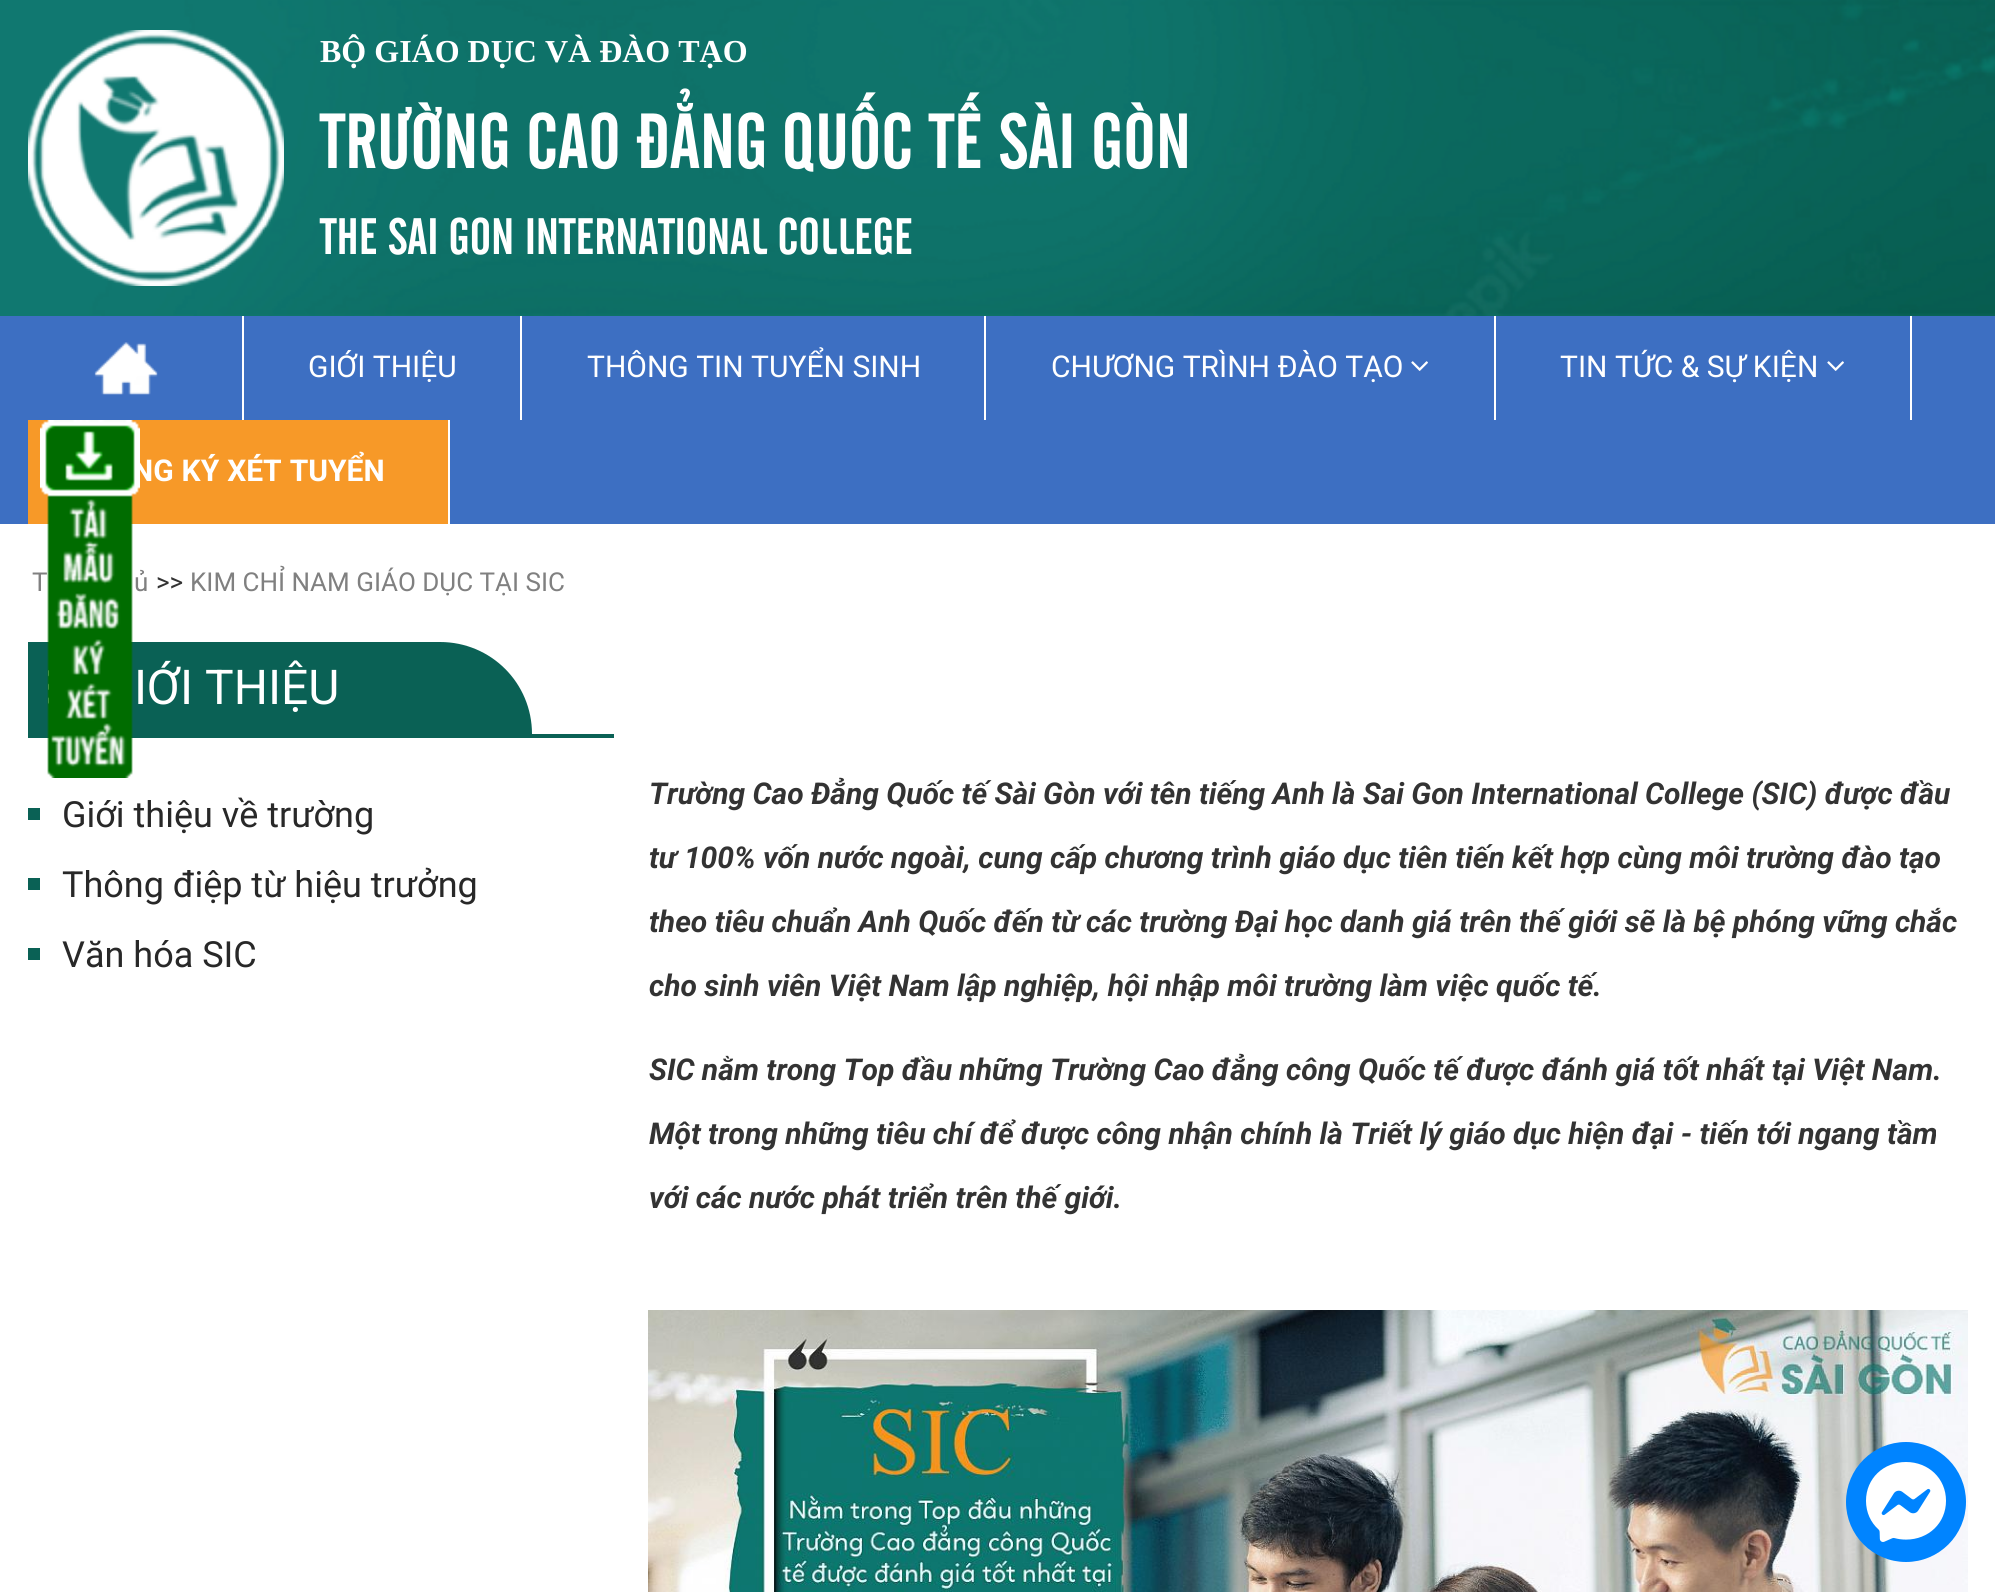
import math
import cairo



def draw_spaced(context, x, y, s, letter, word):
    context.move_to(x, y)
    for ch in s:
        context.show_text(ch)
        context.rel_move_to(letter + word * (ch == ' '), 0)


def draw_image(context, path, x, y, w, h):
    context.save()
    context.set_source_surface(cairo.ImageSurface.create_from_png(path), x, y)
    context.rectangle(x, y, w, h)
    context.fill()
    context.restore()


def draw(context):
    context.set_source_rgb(1, 1, 1)
    context.paint()
    draw_image(context, "images/1.png", 0, 0, 1995, 316)
    draw_image(context, "images/2.png", 28, 30, 256, 256)
    context.set_source_rgb(61 / 255, 111 / 255, 194 / 255)
    context.rectangle(0, 316, 1995, 208)
    context.fill()
    context.set_source_rgb(1, 1, 1)
    context.rectangle(242, 316, 2, 104)
    context.fill()
    draw_image(context, "images/4.png", 94, 342, 64, 53)
    context.rectangle(520, 316, 2, 104)
    context.fill()
    context.rectangle(984, 316, 2, 104)
    context.fill()
    context.rectangle(1494, 316, 2, 104)
    context.fill()
    draw_image(context, "images/5.png", 1411, 361, 17, 10)
    context.rectangle(1910, 316, 2, 104)
    context.fill()
    draw_image(context, "images/5.png", 1827, 361, 17, 10)
    context.set_source_rgb(247 / 255, 153 / 255, 40 / 255)
    context.rectangle(28, 420, 420, 104)
    context.fill()
    context.set_source_rgb(1, 1, 1)
    context.rectangle(448, 420, 2, 104)
    context.fill()
    context.set_source_rgb(10 / 255, 97 / 255, 85 / 255)
    context.new_path()
    context.move_to(28, 642)
    context.line_to(440, 642)
    context.curve_to(491, 642, 532, 683, 532, 734)
    context.line_to(28, 734)
    context.close_path()
    context.fill()
    draw_image(context, "images/6.png", 48, 670, 1, 34)
    context.rectangle(28, 734, 586, 4)
    context.fill()
    context.rectangle(28, 808, 12, 12)
    context.fill()
    context.rectangle(28, 878, 12, 12)
    context.fill()
    context.rectangle(28, 948, 12, 12)
    context.fill()
    draw_image(context, "images/7.png", 648, 1310, 1320, 282)
    draw_image(context, "images/8.png", 1846, 1442, 120, 120)
    context.select_font_face("Liberation Serif", cairo.FontSlant.NORMAL, cairo.FontWeight.BOLD)
    context.set_font_size(32)
    context.set_source_rgb(1, 1, 1)
    context.move_to(320, 62)
    context.show_text("BỘ GIÁO DỤC VÀ ĐÀO TẠO")
    context.select_font_face("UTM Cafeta")
    context.set_font_size(77.25)
    context.move_to(320, 168)
    context.show_text("TRƯỜNG CAO ĐẲNG QUỐC TẾ SÀI GÒN")
    context.set_font_size(50.75)
    context.move_to(320, 254)
    context.show_text("THE SAI GON INTERNATIONAL COLLEGE")
    context.select_font_face("Roboto")
    context.set_font_size(30)
    context.move_to(308, 377)
    context.show_text("GIỚI THIỆU")
    context.move_to(587, 377)
    context.show_text("THÔNG TIN TUYỂN SINH")
    context.move_to(1051, 377)
    context.show_text("CHƯƠNG TRÌNH ĐÀO TẠO")
    context.move_to(1560, 377)
    context.show_text("TIN TỨC & SỰ KIỆN")
    context.select_font_face("Roboto", cairo.FontSlant.NORMAL, cairo.FontWeight.BOLD)
    draw_spaced(context, 132, 481, "NG KÝ XÉT TUYỂN", 0, 0.5)
    context.select_font_face("Roboto")
    context.set_font_size(26)
    context.set_source_rgb(128 / 255, 128 / 255, 128 / 255)
    context.move_to(32, 591)
    context.show_text("T")
    context.move_to(134, 591)
    context.show_text("ủ")
    context.set_source_rgb(51 / 255, 51 / 255, 51 / 255)
    context.move_to(156, 591)
    context.show_text(">>")
    context.set_source_rgb(128 / 255, 128 / 255, 128 / 255)
    context.move_to(190, 591)
    context.show_text("KIM CHỈ NAM GIÁO DỤC TẠI SIC")
    context.set_font_size(48)
    context.set_source_rgb(1, 1, 1)
    context.move_to(134, 704)
    context.show_text("IỚI THIỆU")
    draw_image(context, "images/3.png", 40, 420, 100, 358)
    context.set_font_size(36)
    context.set_source_rgb(40 / 255, 40 / 255, 40 / 255)
    context.move_to(62, 827)
    context.show_text("Giới thiệu về trường")
    context.move_to(62, 897)
    context.show_text("Thông điệp từ hiệu trưởng")
    context.move_to(62, 967)
    context.show_text("Văn hóa SIC")
    context.select_font_face("Roboto", cairo.FontSlant.ITALIC, cairo.FontWeight.BOLD)
    context.set_font_size(30)
    context.set_source_rgb(51 / 255, 51 / 255, 51 / 255)
    context.move_to(649, 804)
    context.show_text("Trường Cao Đẳng Quốc tế Sài Gòn với tên tiếng Anh là Sai Gon International College (SIC) được đầu")
    context.move_to(649, 868)
    context.show_text("tư 100% vốn nước ngoài, cung cấp chương trình giáo dục tiên tiến kết hợp cùng môi trường đào tạo")
    context.move_to(649, 932)
    context.show_text("theo tiêu chuẩn Anh Quốc đến từ các trường Đại học danh giá trên thế giới sẽ là bệ phóng vững chắc")
    context.move_to(649, 996)
    context.show_text("cho sinh viên Việt Nam lập nghiệp, hội nhập môi trường làm việc quốc tế.")
    context.move_to(649, 1080)
    context.show_text("SIC nằm trong Top đầu những Trường Cao đẳng công Quốc tế được đánh giá tốt nhất tại Việt Nam.")
    context.move_to(649, 1144)
    context.show_text("Một trong những tiêu chí để được công nhận chính là Triết lý giáo dục hiện đại - tiến tới ngang tầm")
    context.move_to(649, 1208)
    context.show_text("với các nước phát triển trên thế giới.")


surface = cairo.ImageSurface(cairo.Format.RGB24, 1995, 1592)
context = cairo.Context(surface)
options = cairo.FontOptions()
options.set_hint_metrics(cairo.HintMetrics.OFF)
options.set_hint_style(cairo.HintStyle.NONE)
context.set_font_options(options)
context.set_miter_limit(4)
draw(context)
surface.write_to_png("out.png")
